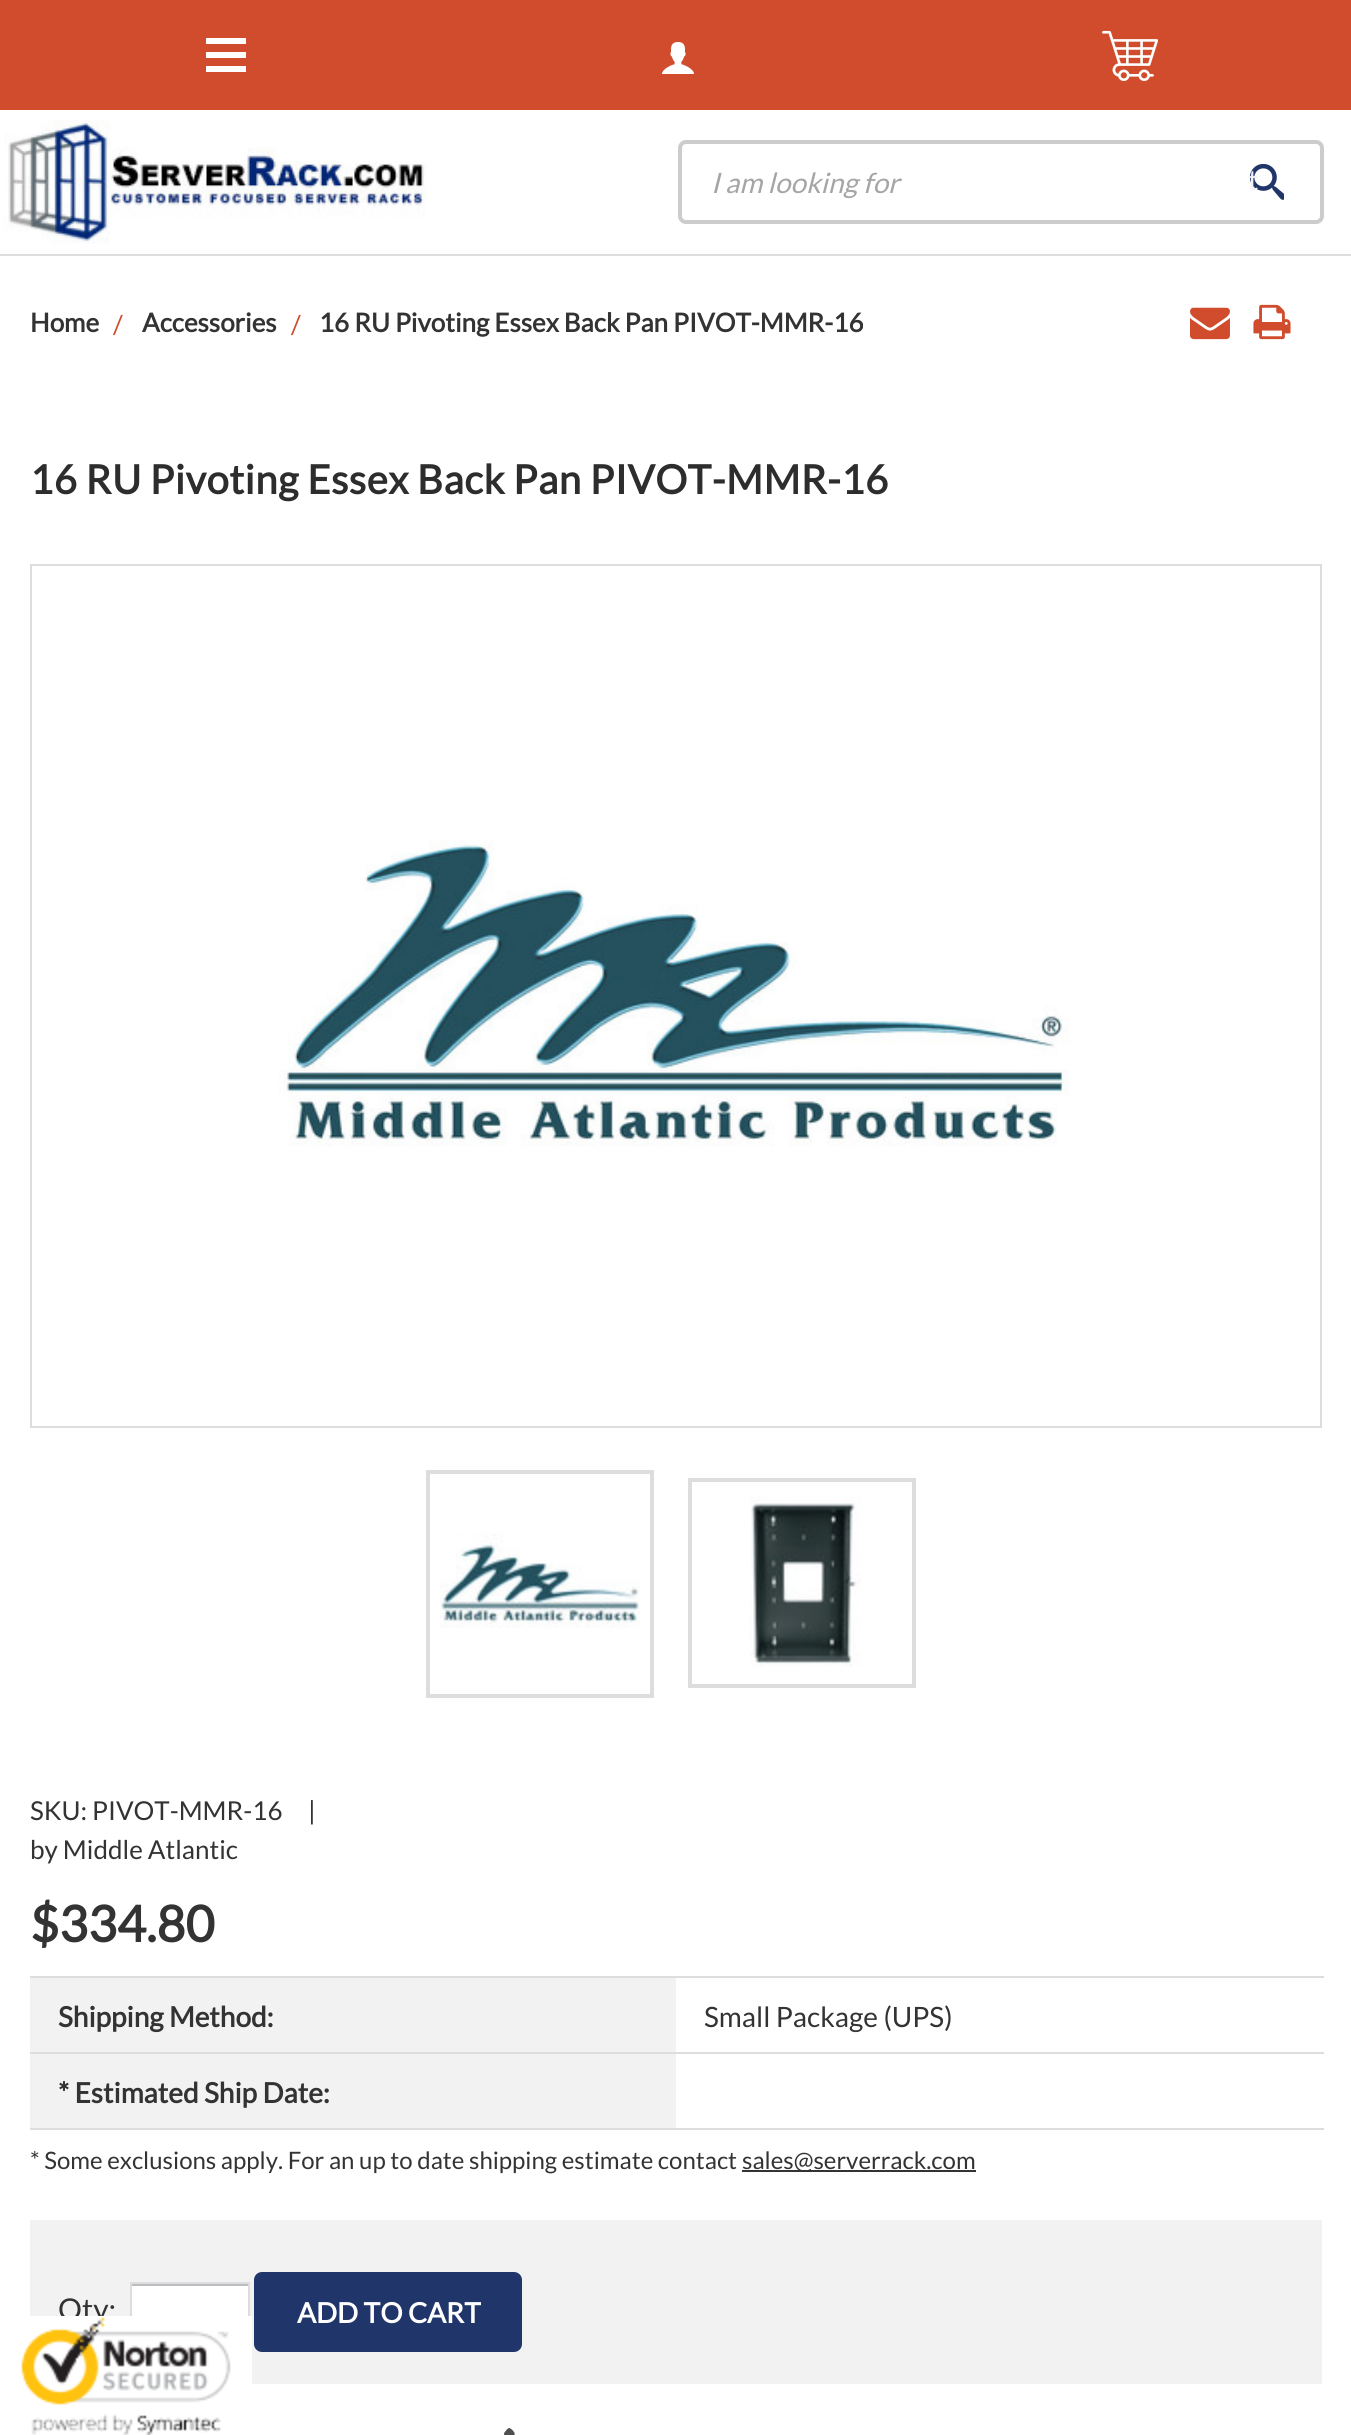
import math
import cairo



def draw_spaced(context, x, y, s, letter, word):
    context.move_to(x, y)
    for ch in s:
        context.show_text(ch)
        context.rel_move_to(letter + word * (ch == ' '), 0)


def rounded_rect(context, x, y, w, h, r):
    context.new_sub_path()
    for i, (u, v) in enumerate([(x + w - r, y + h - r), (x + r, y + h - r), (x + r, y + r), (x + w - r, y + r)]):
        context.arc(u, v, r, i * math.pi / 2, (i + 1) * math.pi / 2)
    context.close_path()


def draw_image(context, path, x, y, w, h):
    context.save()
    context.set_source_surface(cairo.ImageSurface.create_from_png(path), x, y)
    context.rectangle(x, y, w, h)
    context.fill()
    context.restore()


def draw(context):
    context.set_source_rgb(1, 1, 1)
    context.paint()
    context.set_source_rgb(221 / 255, 221 / 255, 221 / 255)
    context.rectangle(0, 254, 1351, 2)
    context.fill()
    context.set_source_rgb(209 / 255, 76 / 255, 44 / 255)
    context.rectangle(0, 0, 1351, 110)
    context.fill()
    context.set_source_rgb(1, 1, 1)
    context.rectangle(206, 52, 40, 6)
    context.fill()
    context.rectangle(206, 38, 40, 6)
    context.fill()
    context.rectangle(206, 66, 40, 6)
    context.fill()
    draw_image(context, "images/1.png", 662, 42, 32, 32)
    draw_image(context, "images/2.png", 1102, 30, 56, 51)
    draw_image(context, "images/3.png", 4, 120, 423, 124)
    rounded_rect(context, 680, 142, 642, 80, 6)
    context.set_source_rgb(204 / 255, 204 / 255, 204 / 255)
    context.set_line_width(4)
    context.stroke()
    draw_image(context, "images/4.png", 1250, 164, 34, 36)
    draw_image(context, "images/5.png", 1190, 307, 40, 33)
    draw_image(context, "images/6.png", 1253, 304, 38, 36)
    context.rectangle(31, 565, 1290, 862)
    context.set_source_rgb(221 / 255, 221 / 255, 221 / 255)
    context.set_line_width(2)
    context.stroke()
    draw_image(context, "images/7.png", 278, 839, 792, 308)
    context.rectangle(428, 1472, 224, 224)
    context.set_line_width(4)
    context.stroke()
    draw_image(context, "images/8.png", 440, 1533, 200, 95)
    context.rectangle(690, 1480, 224, 206)
    context.stroke()
    draw_image(context, "images/9.png", 750, 1496, 111, 171)
    context.rectangle(30, 1976, 1294, 2)
    context.fill()
    context.rectangle(30, 2128, 1294, 2)
    context.fill()
    context.set_source_rgb(242 / 255, 242 / 255, 242 / 255)
    context.rectangle(30, 1978, 646, 74)
    context.fill()
    context.set_source_rgb(221 / 255, 221 / 255, 221 / 255)
    context.rectangle(30, 2052, 1294, 2)
    context.fill()
    context.set_source_rgb(242 / 255, 242 / 255, 242 / 255)
    context.rectangle(30, 2054, 646, 74)
    context.fill()
    context.set_source_rgb(51 / 255, 51 / 255, 51 / 255)
    context.rectangle(742, 2170, 234, 2)
    context.fill()
    context.set_source_rgb(242 / 255, 242 / 255, 242 / 255)
    context.rectangle(30, 2220, 1292, 164)
    context.fill()
    context.set_source_rgb(1, 1, 1)
    context.rectangle(132, 2286, 116, 30)
    context.fill()
    context.set_source_rgb(187 / 255, 188 / 255, 192 / 255)
    context.rectangle(132, 2284, 116, 2)
    context.fill()
    context.rectangle(131, 2283, 118, 58)
    context.set_source_rgb(221 / 255, 221 / 255, 221 / 255)
    context.set_line_width(2)
    context.stroke()
    context.set_source_rgb(32 / 255, 53 / 255, 105 / 255)
    rounded_rect(context, 255, 2273, 266, 78, 7)
    context.fill_preserve()
    context.stroke()
    draw_image(context, "images/11.png", 504, 2428, 11, 7)
    context.select_font_face("Lato", cairo.FontSlant.ITALIC)
    context.set_font_size(28)
    context.set_source_rgb(165 / 255, 165 / 255, 165 / 255)
    context.move_to(711, 193)
    context.show_text("I am looking for")
    context.select_font_face("Lato")
    context.set_source_rgb(240 / 255, 242 / 255, 245 / 255)
    context.move_to(1248, 190)
    context.show_text("t")
    context.select_font_face("Lato", cairo.FontSlant.NORMAL, cairo.FontWeight.BOLD)
    context.set_font_size(26)
    context.set_source_rgb(51 / 255, 51 / 255, 51 / 255)
    context.move_to(30, 332)
    context.show_text("Home")
    context.select_font_face("Lato")
    context.set_source_rgb(209 / 255, 76 / 255, 44 / 255)
    context.move_to(113, 334)
    context.show_text("/")
    context.select_font_face("Lato", cairo.FontSlant.NORMAL, cairo.FontWeight.BOLD)
    context.set_source_rgb(51 / 255, 51 / 255, 51 / 255)
    context.move_to(142, 332)
    context.show_text("Accessories")
    context.select_font_face("Lato")
    context.set_source_rgb(209 / 255, 76 / 255, 44 / 255)
    context.move_to(291, 334)
    context.show_text("/")
    context.select_font_face("Lato", cairo.FontSlant.NORMAL, cairo.FontWeight.BOLD)
    context.set_source_rgb(51 / 255, 51 / 255, 51 / 255)
    context.move_to(319, 332)
    context.show_text("16 RU Pivoting Essex Back Pan PIVOT-MMR-16")
    context.set_font_size(40)
    context.set_source_rgb(45 / 255, 45 / 255, 45 / 255)
    draw_spaced(context, 30, 494, "16 RU Pivoting Essex Back Pan PIVOT-MMR-16", 0.5, 0)
    context.select_font_face("Lato")
    context.set_font_size(26)
    context.set_source_rgb(51 / 255, 51 / 255, 51 / 255)
    context.move_to(30, 1820)
    context.show_text("SKU: PIVOT-MMR-16")
    context.move_to(308, 1820)
    context.show_text("|")
    context.move_to(30, 1859)
    context.show_text("by Middle Atlantic")
    context.select_font_face("Lato", cairo.FontSlant.NORMAL, cairo.FontWeight.BOLD)
    context.set_font_size(50)
    context.move_to(30, 1942)
    context.show_text("$334.80")
    context.set_font_size(28)
    context.move_to(58, 2027)
    context.show_text("Shipping Method:")
    context.select_font_face("Lato")
    context.move_to(704, 2027)
    context.show_text("Small Package (UPS)")
    context.select_font_face("Lato", cairo.FontSlant.NORMAL, cairo.FontWeight.BOLD)
    context.move_to(58, 2103)
    context.show_text("* Estimated Ship Date:")
    context.select_font_face("Lato")
    context.set_font_size(24)
    context.move_to(30, 2169)
    context.show_text("* Some exclusions apply. For an up to date shipping estimate contact")
    context.move_to(742, 2169)
    context.show_text("sales@serverrack.com")
    context.set_font_size(30)
    context.move_to(58, 2320)
    context.show_text("Qty:")
    context.select_font_face("Lato", cairo.FontSlant.NORMAL, cairo.FontWeight.BOLD)
    context.set_font_size(28)
    context.set_source_rgb(1, 1, 1)
    context.move_to(297, 2323)
    context.show_text("ADD TO CART")
    context.rectangle(30, 2316, 222, 68)
    context.fill()
    draw_image(context, "images/10.png", 21, 2317, 210, 118)


surface = cairo.ImageSurface(cairo.Format.RGB24, 1351, 2435)
context = cairo.Context(surface)
options = cairo.FontOptions()
options.set_hint_metrics(cairo.HintMetrics.OFF)
options.set_hint_style(cairo.HintStyle.NONE)
context.set_font_options(options)
context.set_miter_limit(4)
draw(context)
surface.write_to_png("out.png")
